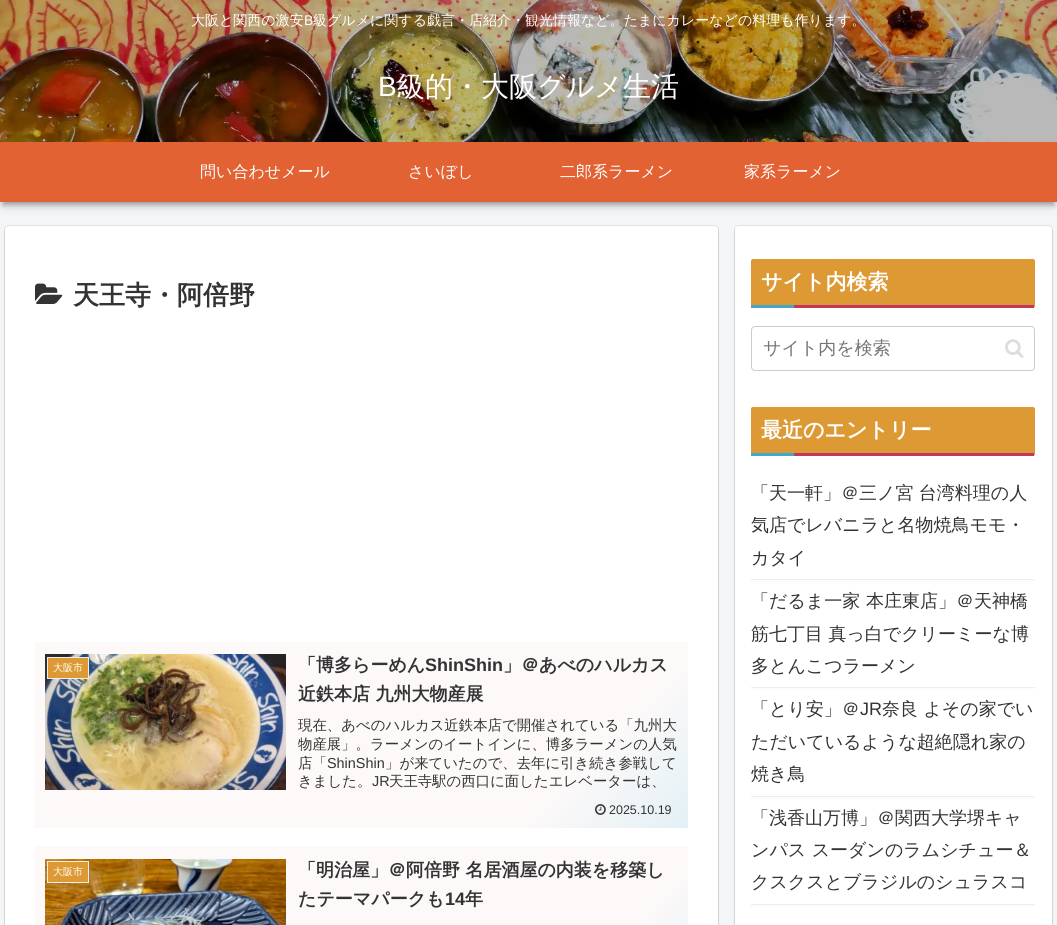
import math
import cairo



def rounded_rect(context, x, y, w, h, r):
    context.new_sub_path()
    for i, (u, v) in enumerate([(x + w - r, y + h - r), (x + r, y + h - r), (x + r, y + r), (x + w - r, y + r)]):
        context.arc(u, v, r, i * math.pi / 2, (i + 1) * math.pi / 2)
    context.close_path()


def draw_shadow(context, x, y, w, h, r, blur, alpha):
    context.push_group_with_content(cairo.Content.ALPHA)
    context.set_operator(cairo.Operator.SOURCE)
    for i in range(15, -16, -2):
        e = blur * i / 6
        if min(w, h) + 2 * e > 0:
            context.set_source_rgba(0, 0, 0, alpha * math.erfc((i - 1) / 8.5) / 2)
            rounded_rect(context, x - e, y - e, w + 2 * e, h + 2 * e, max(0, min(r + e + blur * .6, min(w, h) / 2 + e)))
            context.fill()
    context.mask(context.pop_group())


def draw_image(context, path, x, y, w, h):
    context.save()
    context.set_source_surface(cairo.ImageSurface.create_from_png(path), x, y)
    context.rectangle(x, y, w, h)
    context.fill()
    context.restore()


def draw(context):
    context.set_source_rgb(244 / 255, 245 / 255, 247 / 255)
    context.paint()
    context.set_source_rgb(0, 0, 0)
    draw_shadow(context, 3, 9, 1051, 196, 0, 5, 0.18)
    draw_shadow(context, 3, 9, 1051, 196, 0, 2.5, 0.24)
    draw_image(context, "images/1.png", 0, 0, 1057, 142)
    context.set_source_rgb(226 / 255, 98 / 255, 52 / 255)
    context.rectangle(0, 142, 1057, 60)
    context.fill()
    rounded_rect(context, 4.5, 225.5, 714, 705, 4.5)
    context.set_source_rgb(224 / 255, 225 / 255, 227 / 255)
    context.set_line_width(1)
    context.stroke()
    context.set_source_rgb(0, 0, 0)
    draw_shadow(context, 5, 228, 713, 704, 4, 1, 0.16)
    context.set_source_rgb(1, 1, 1)
    rounded_rect(context, 5, 226, 713, 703, 4)
    context.fill()
    draw_image(context, "images/2.png", 35, 283, 28, 21)
    gradient = cairo.LinearGradient(152, 525, 571, 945)
    gradient.add_color_stop_rgba(0, 253 / 255, 249 / 255, 249 / 255, 1)
    gradient.add_color_stop_rgba(0.8, 253 / 255, 249 / 255, 249 / 255, 1)
    gradient.add_color_stop_rgba(1, 226 / 255, 240 / 255, 245 / 255, 1)
    context.set_source(gradient)
    context.rectangle(35, 642, 653, 186)
    context.fill()
    draw_image(context, "images/3.png", 45, 654, 241, 136)
    context.set_source_rgb(221 / 255, 153 / 255, 51 / 255)
    context.rectangle(47.5, 657.5, 41, 21)
    context.fill_preserve()
    context.set_source_rgb(238 / 255, 238 / 255, 238 / 255)
    context.stroke()
    draw_image(context, "images/4.png", 595, 804, 11, 11)
    gradient = cairo.LinearGradient(151, 730, 572, 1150)
    gradient.add_color_stop_rgba(0, 253 / 255, 249 / 255, 249 / 255, 1)
    gradient.add_color_stop_rgba(0.8, 253 / 255, 249 / 255, 249 / 255, 1)
    gradient.add_color_stop_rgba(1, 226 / 255, 240 / 255, 245 / 255, 1)
    context.set_source(gradient)
    context.rectangle(35, 846, 653, 79)
    context.fill()
    draw_image(context, "images/5.png", 45, 859, 241, 66)
    context.set_source_rgb(221 / 255, 153 / 255, 51 / 255)
    context.rectangle(47.5, 861.5, 41, 21)
    context.fill_preserve()
    context.set_source_rgb(238 / 255, 238 / 255, 238 / 255)
    context.stroke()
    rounded_rect(context, 734.5, 225.5, 318, 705, 4.5)
    context.set_source_rgb(224 / 255, 225 / 255, 227 / 255)
    context.stroke()
    context.set_source_rgb(0, 0, 0)
    draw_shadow(context, 735, 228, 317, 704, 4, 1, 0.16)
    context.set_source_rgb(1, 1, 1)
    rounded_rect(context, 735, 226, 317, 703, 4)
    context.fill()
    context.set_source_rgb(221 / 255, 153 / 255, 51 / 255)
    rounded_rect(context, 751, 259, 284, 49, 2)
    context.fill()
    context.set_source_rgb(193 / 255, 56 / 255, 95 / 255)
    context.rectangle(794, 305, 240, 3)
    context.fill()
    context.set_source_rgb(67 / 255, 168 / 255, 202 / 255)
    context.rectangle(751, 305, 43, 3)
    context.fill()
    rounded_rect(context, 751.5, 326.5, 283, 44, 3.5)
    context.set_source_rgb(204 / 255, 204 / 255, 204 / 255)
    context.stroke()
    draw_image(context, "images/6.png", 1005, 339, 19, 19)
    context.set_source_rgb(221 / 255, 153 / 255, 51 / 255)
    rounded_rect(context, 751, 407, 284, 49, 2)
    context.fill()
    context.set_source_rgb(193 / 255, 56 / 255, 95 / 255)
    context.rectangle(794, 453, 240, 3)
    context.fill()
    context.set_source_rgb(67 / 255, 168 / 255, 202 / 255)
    context.rectangle(751, 453, 43, 3)
    context.fill()
    context.set_source_rgb(253 / 255, 252 / 255, 252 / 255)
    context.rectangle(751, 580, 284, 2)
    context.fill()
    context.set_source_rgb(245 / 255, 235 / 255, 238 / 255)
    context.rectangle(751, 579, 284, 1)
    context.fill()
    context.set_source_rgb(253 / 255, 252 / 255, 252 / 255)
    context.rectangle(751, 688, 284, 2)
    context.fill()
    context.set_source_rgb(245 / 255, 235 / 255, 238 / 255)
    context.rectangle(751, 687, 284, 1)
    context.fill()
    context.set_source_rgb(253 / 255, 252 / 255, 252 / 255)
    context.rectangle(751, 797, 284, 2)
    context.fill()
    context.set_source_rgb(245 / 255, 235 / 255, 238 / 255)
    context.rectangle(751, 796, 284, 1)
    context.fill()
    context.set_source_rgb(253 / 255, 252 / 255, 252 / 255)
    context.rectangle(751, 905, 284, 2)
    context.fill()
    context.set_source_rgb(245 / 255, 235 / 255, 238 / 255)
    context.rectangle(751, 904, 284, 1)
    context.fill()
    context.select_font_face("WenQuanYi Zen Hei Medium")
    context.set_font_size(14)
    context.set_source_rgb(1, 1, 1)
    context.move_to(191, 25)
    context.show_text("大阪と関西の激安")
    context.select_font_face("Liberation Sans")
    context.move_to(304, 25)
    context.show_text("B")
    context.select_font_face("WenQuanYi Zen Hei Medium")
    context.move_to(313, 25)
    context.show_text("級グルメに関する戯言・店紹介・観光情報など。たまにカレーなどの料理も作ります。")
    context.select_font_face("Liberation Sans")
    context.set_font_size(28)
    context.move_to(378, 96)
    context.show_text("B")
    context.select_font_face("WenQuanYi Zen Hei Medium")
    context.move_to(397, 96)
    context.show_text("級的・大阪グルメ生活")
    context.set_font_size(16)
    context.move_to(200, 177)
    context.show_text("問い合わせメール")
    context.move_to(408, 177)
    context.show_text("さいぼし")
    context.move_to(560, 177)
    context.show_text("二郎系ラーメン")
    context.move_to(744, 177)
    context.show_text("家系ラーメン")
    context.select_font_face("WenQuanYi Zen Hei", cairo.FontSlant.NORMAL, cairo.FontWeight.BOLD)
    context.set_font_size(26)
    context.set_source_rgb(51 / 255, 51 / 255, 51 / 255)
    context.move_to(73, 304)
    context.show_text("天王寺・阿倍野")
    context.select_font_face("WenQuanYi Zen Hei Medium")
    context.set_font_size(10)
    context.set_source_rgb(1, 1, 1)
    context.move_to(53, 671)
    context.show_text("大阪市")
    context.select_font_face("WenQuanYi Zen Hei", cairo.FontSlant.NORMAL, cairo.FontWeight.BOLD)
    context.set_font_size(18)
    context.set_source_rgb(51 / 255, 51 / 255, 51 / 255)
    context.move_to(298, 671)
    context.show_text("「博多らーめん")
    context.select_font_face("Liberation Sans", cairo.FontSlant.NORMAL, cairo.FontWeight.BOLD)
    context.move_to(425, 671)
    context.show_text("ShinShin")
    context.select_font_face("WenQuanYi Zen Hei", cairo.FontSlant.NORMAL, cairo.FontWeight.BOLD)
    context.move_to(503, 671)
    context.show_text("」＠あべのハルカス")
    context.move_to(298, 700)
    context.show_text("近鉄本店 九州大物産展")
    context.select_font_face("WenQuanYi Zen Hei Medium")
    context.set_font_size(14.4)
    context.move_to(298, 730)
    context.show_text("現在、あべのハルカス近鉄本店で開催されている「九州大")
    context.move_to(298, 749)
    context.show_text("物産展」。ラーメンのイートインに、博多ラーメンの人気")
    context.move_to(298, 768)
    context.show_text("店「")
    context.select_font_face("Liberation Sans")
    context.move_to(327, 768)
    context.show_text("ShinShin")
    context.select_font_face("WenQuanYi Zen Hei Medium")
    context.move_to(385, 768)
    context.show_text("」が来ていたので、去年に引き続き参戦して")
    context.move_to(298, 786)
    context.show_text("きました。")
    context.select_font_face("Liberation Sans")
    context.move_to(372, 786)
    context.show_text("JR")
    context.select_font_face("WenQuanYi Zen Hei Medium")
    context.move_to(389, 786)
    context.show_text("天王寺駅の西口に面したエレベーターは、")
    context.select_font_face("Liberation Sans")
    context.set_font_size(12.5)
    context.move_to(609, 814)
    context.show_text("2025.10.19")
    context.select_font_face("WenQuanYi Zen Hei Medium")
    context.set_font_size(10)
    context.set_source_rgb(1, 1, 1)
    context.move_to(53, 875)
    context.show_text("大阪市")
    context.select_font_face("WenQuanYi Zen Hei", cairo.FontSlant.NORMAL, cairo.FontWeight.BOLD)
    context.set_font_size(18)
    context.set_source_rgb(51 / 255, 51 / 255, 51 / 255)
    context.move_to(298, 876)
    context.show_text("「明治屋」＠阿倍野 名居酒屋の内装を移築し")
    context.move_to(298, 905)
    context.show_text("たテーマパークも")
    context.select_font_face("Liberation Sans", cairo.FontSlant.NORMAL, cairo.FontWeight.BOLD)
    context.move_to(445, 905)
    context.show_text("14")
    context.select_font_face("WenQuanYi Zen Hei", cairo.FontSlant.NORMAL, cairo.FontWeight.BOLD)
    context.move_to(465, 905)
    context.show_text("年")
    context.set_font_size(21)
    context.set_source_rgb(1, 1, 1)
    context.move_to(761, 289)
    context.show_text("サイト内検索")
    context.select_font_face("WenQuanYi Zen Hei Medium")
    context.set_font_size(18)
    context.set_source_rgb(117 / 255, 117 / 255, 117 / 255)
    context.move_to(763, 354)
    context.show_text("サイト内を検索")
    context.select_font_face("WenQuanYi Zen Hei", cairo.FontSlant.NORMAL, cairo.FontWeight.BOLD)
    context.set_font_size(21)
    context.set_source_rgb(1, 1, 1)
    context.move_to(761, 437)
    context.show_text("最近のエントリー")
    context.select_font_face("WenQuanYi Zen Hei Medium")
    context.set_font_size(18)
    context.set_source_rgb(51 / 255, 51 / 255, 51 / 255)
    context.move_to(751, 499)
    context.show_text("「天一軒」＠三ノ宮 台湾料理の人")
    context.move_to(751, 531)
    context.show_text("気店でレバニラと名物焼鳥モモ・")
    context.move_to(751, 564)
    context.show_text("カタイ")
    context.move_to(751, 607)
    context.show_text("「だるま一家")
    context.move_to(866, 607)
    context.show_text("本庄東店」＠天神橋")
    context.move_to(751, 640)
    context.show_text("筋七丁目 真っ白でクリーミーな博")
    context.move_to(751, 672)
    context.show_text("多とんこつラーメン")
    context.move_to(751, 715)
    context.show_text("「とり安」＠")
    context.select_font_face("Liberation Sans")
    context.move_to(860, 715)
    context.show_text("JR")
    context.select_font_face("WenQuanYi Zen Hei Medium")
    context.move_to(882, 715)
    context.show_text("奈良 よその家でい")
    context.move_to(751, 748)
    context.show_text("ただいているような超絶隠れ家の")
    context.move_to(751, 780)
    context.show_text("焼き鳥")
    context.move_to(751, 824)
    context.show_text("「浅香山万博」＠関西大学堺キャ")
    context.move_to(751, 856)
    context.show_text("ンパス スーダンのラムシチュー＆")
    context.move_to(751, 888)
    context.show_text("クスクスとブラジルのシュラスコ")


surface = cairo.ImageSurface(cairo.Format.RGB24, 1057, 925)
context = cairo.Context(surface)
options = cairo.FontOptions()
options.set_hint_metrics(cairo.HintMetrics.OFF)
options.set_hint_style(cairo.HintStyle.NONE)
context.set_font_options(options)
context.set_miter_limit(4)
draw(context)
surface.write_to_png("out.png")
